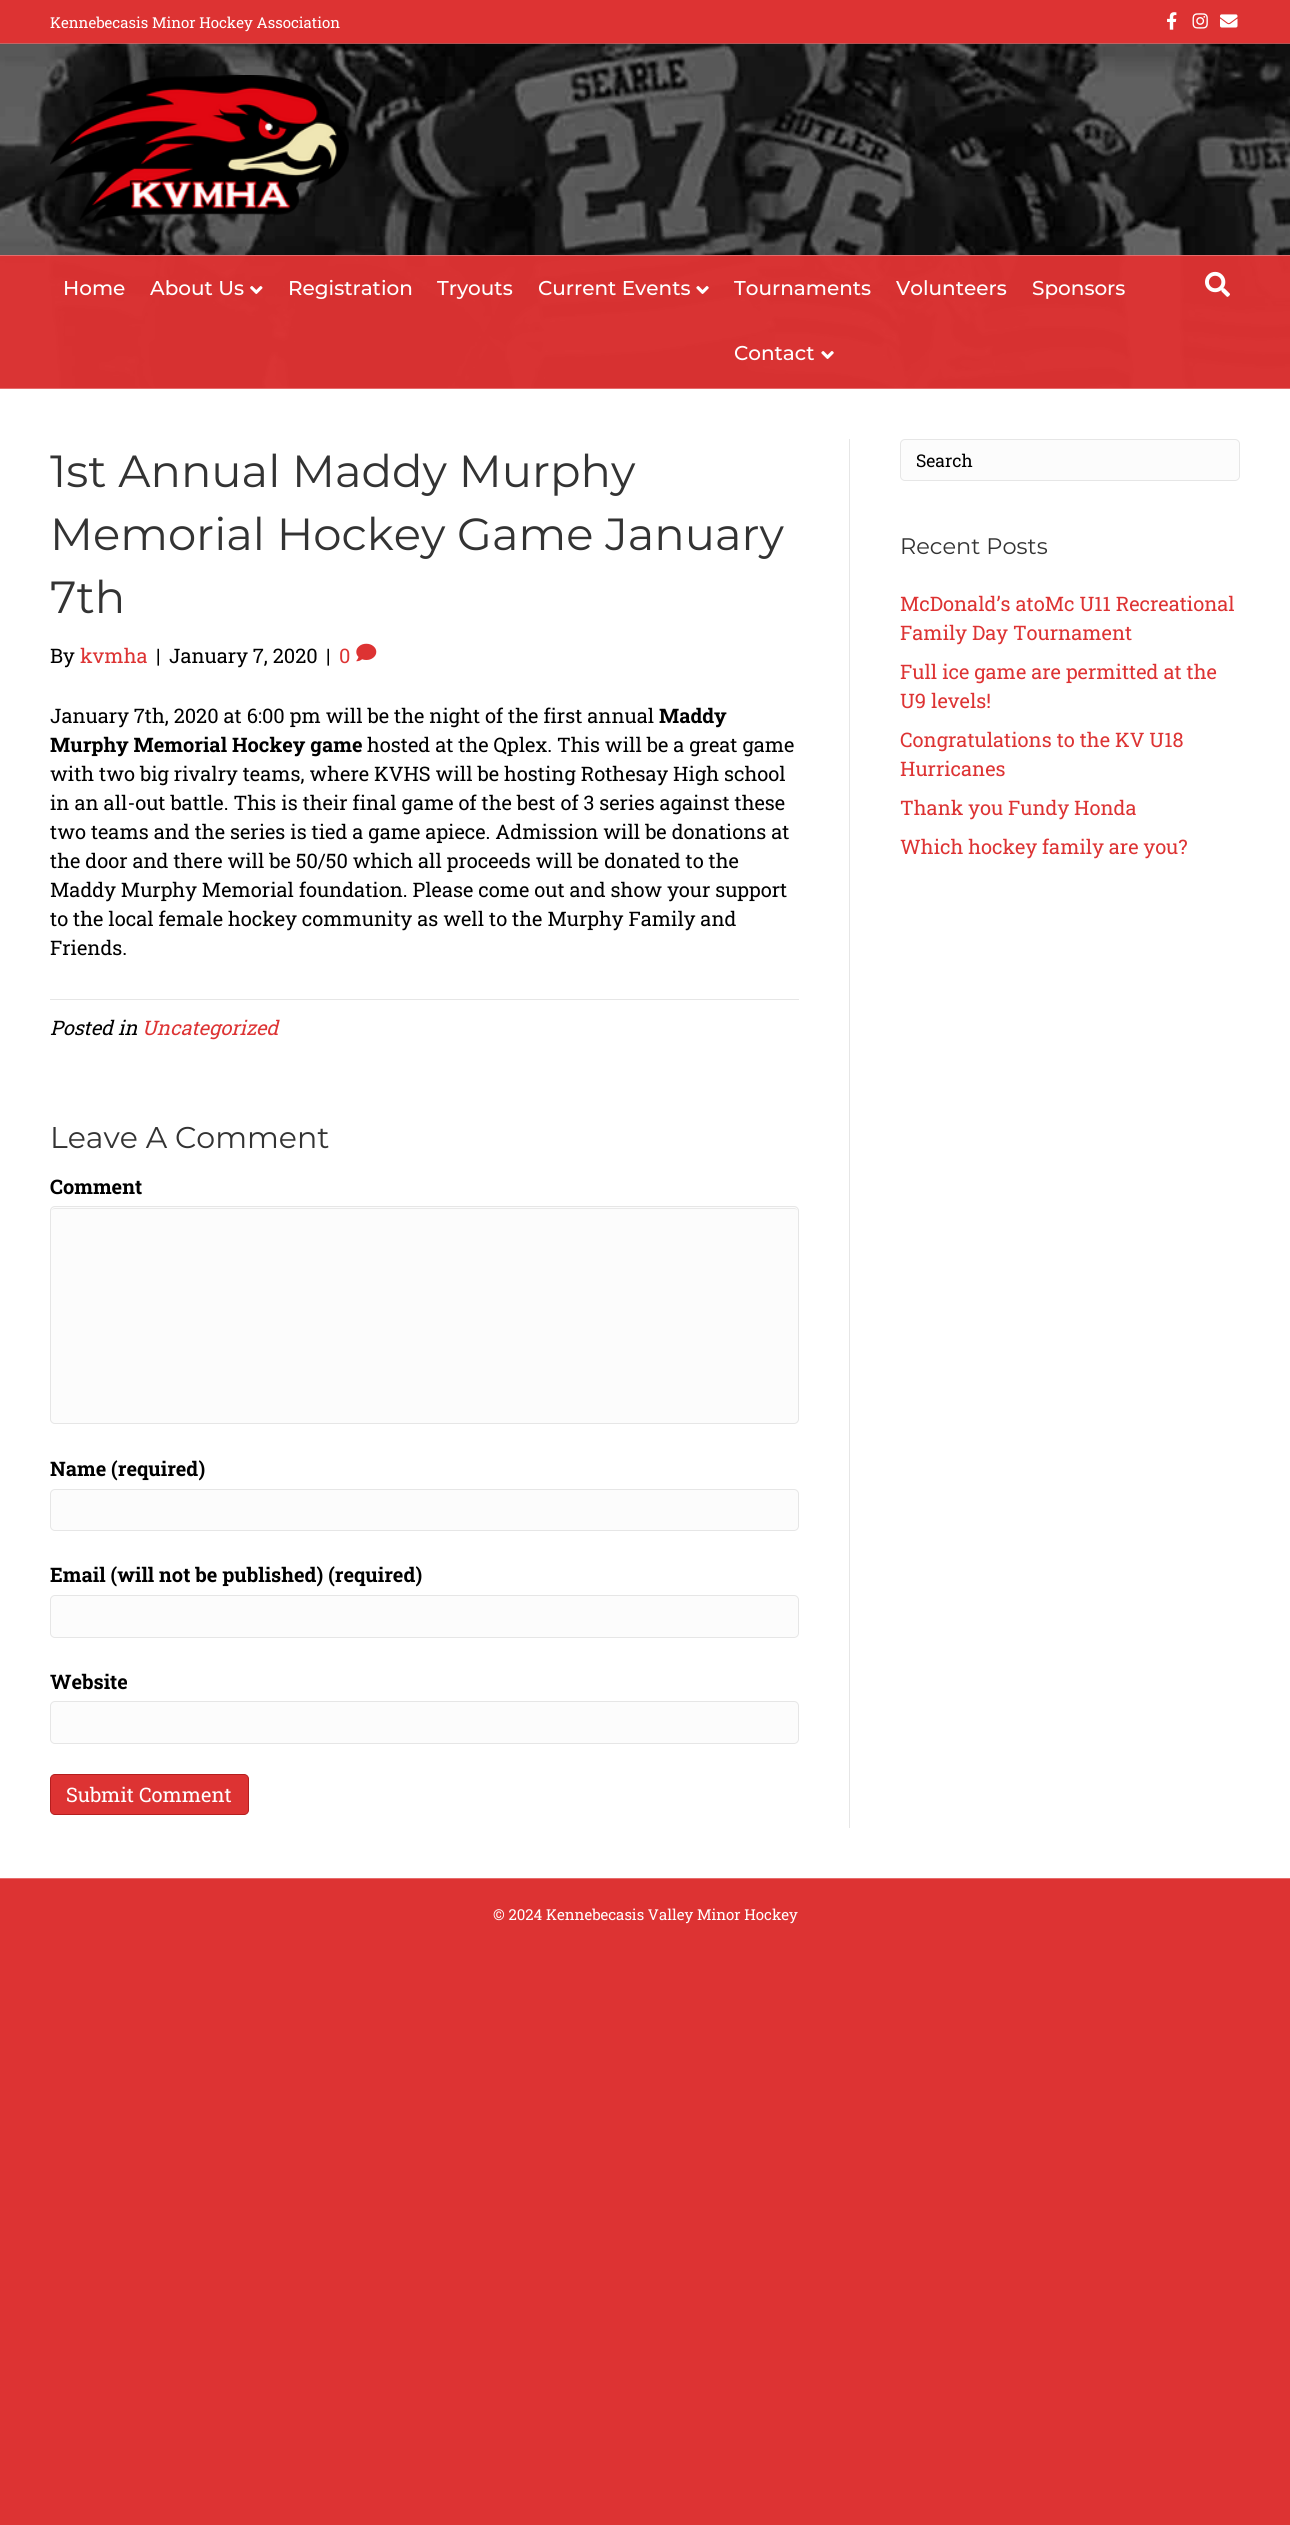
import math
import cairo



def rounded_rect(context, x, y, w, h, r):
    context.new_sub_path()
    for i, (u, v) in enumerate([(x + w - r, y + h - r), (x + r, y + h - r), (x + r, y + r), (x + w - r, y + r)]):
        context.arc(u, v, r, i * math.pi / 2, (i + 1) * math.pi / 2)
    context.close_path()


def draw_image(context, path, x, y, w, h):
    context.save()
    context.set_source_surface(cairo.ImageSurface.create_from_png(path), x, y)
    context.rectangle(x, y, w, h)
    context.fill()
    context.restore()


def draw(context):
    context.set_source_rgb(221 / 255, 51 / 255, 51 / 255)
    context.paint()
    context.set_source_rgb(230 / 255, 108 / 255, 108 / 255)
    context.rectangle(0, 43, 1290, 1)
    context.fill()
    draw_image(context, "images/1.png", 1167, 12, 10, 18)
    draw_image(context, "images/2.png", 1192, 13, 16, 16)
    draw_image(context, "images/3.png", 1220, 14, 18, 14)
    draw_image(context, "images/4.png", 0, 43, 1290, 345)
    draw_image(context, "images/5.png", 50, 75, 299, 148)
    context.set_source_rgba(221 / 255, 51 / 255, 51 / 255, 0.97)
    context.rectangle(0, 256, 1290, 132)
    context.fill()
    context.set_source_rgb(230 / 255, 108 / 255, 108 / 255)
    context.rectangle(0, 255, 1290, 1)
    context.fill()
    context.rectangle(0, 388, 1290, 1)
    context.fill()
    draw_image(context, "images/6.png", 250, 286, 13, 8)
    draw_image(context, "images/7.png", 696, 286, 13, 8)
    draw_image(context, "images/8.png", 821, 351, 13, 8)
    draw_image(context, "images/9.png", 1205, 271, 25, 26)
    context.set_source_rgb(1, 1, 1)
    context.rectangle(0, 389, 1290, 1489)
    context.fill()
    context.set_source_rgb(230 / 255, 230 / 255, 230 / 255)
    context.rectangle(849, 439, 1, 1389)
    context.fill()
    draw_image(context, "images/10.png", 356, 643, 21, 19)
    context.rectangle(50, 999, 749, 1)
    context.fill()
    context.set_source_rgb(252 / 255, 252 / 255, 252 / 255)
    rounded_rect(context, 50, 1206, 749, 218, 5)
    context.fill()
    context.set_source_rgb(233 / 255, 233 / 255, 233 / 255)
    context.new_path()
    context.move_to(55, 1209)
    context.line_to(794, 1209)
    context.curve_to(796, 1209, 798, 1210, 798, 1212)
    context.curve_to(798, 1210, 796, 1208, 794, 1208)
    context.line_to(55, 1208)
    context.curve_to(53, 1208, 51, 1210, 51, 1212)
    context.curve_to(51, 1210, 53, 1209, 55, 1209)
    context.close_path()
    context.fill()
    rounded_rect(context, 50.5, 1206.5, 748, 217, 4.5)
    context.set_source_rgb(230 / 255, 230 / 255, 230 / 255)
    context.set_line_width(1)
    context.stroke()
    context.set_source_rgb(252 / 255, 252 / 255, 252 / 255)
    rounded_rect(context, 50.5, 1489.5, 748, 41, 4.5)
    context.fill_preserve()
    context.set_source_rgb(230 / 255, 230 / 255, 230 / 255)
    context.stroke()
    context.set_source_rgb(252 / 255, 252 / 255, 252 / 255)
    rounded_rect(context, 50.5, 1595.5, 748, 42, 4.5)
    context.fill_preserve()
    context.set_source_rgb(230 / 255, 230 / 255, 230 / 255)
    context.stroke()
    context.set_source_rgb(252 / 255, 252 / 255, 252 / 255)
    rounded_rect(context, 50.5, 1701.5, 748, 42, 4.5)
    context.fill_preserve()
    context.set_source_rgb(230 / 255, 230 / 255, 230 / 255)
    context.stroke()
    context.set_source_rgb(221 / 255, 51 / 255, 51 / 255)
    rounded_rect(context, 50.5, 1774.5, 198, 40, 4.5)
    context.fill_preserve()
    context.set_source_rgb(181 / 255, 30 / 255, 30 / 255)
    context.stroke()
    context.set_source_rgb(252 / 255, 252 / 255, 252 / 255)
    rounded_rect(context, 900.5, 439.5, 339, 41, 4.5)
    context.fill_preserve()
    context.set_source_rgb(230 / 255, 230 / 255, 230 / 255)
    context.stroke()
    context.set_source_rgb(230 / 255, 108 / 255, 108 / 255)
    context.rectangle(0, 1878, 1290, 1)
    context.fill()
    context.select_font_face("Roboto Slab")
    context.set_font_size(15)
    context.set_source_rgb(1, 1, 1)
    context.move_to(50, 28)
    context.show_text("Kennebecasis Minor Hockey Association")
    context.select_font_face("Montserrat Medium")
    context.set_font_size(20)
    context.move_to(63, 295)
    context.show_text("Home")
    context.move_to(150, 295)
    context.show_text("About Us")
    context.move_to(288, 295)
    context.show_text("Registration")
    context.move_to(437, 295)
    context.show_text("Tryouts")
    context.move_to(538, 295)
    context.show_text("Current Events")
    context.move_to(734, 295)
    context.show_text("Tournaments")
    context.move_to(896, 295)
    context.show_text("Volunteers")
    context.move_to(1032, 295)
    context.show_text("Sponsors")
    context.move_to(734, 360)
    context.show_text("Contact")
    context.select_font_face("Montserrat")
    context.set_font_size(45)
    context.set_source_rgb(51 / 255, 51 / 255, 51 / 255)
    context.move_to(50, 487)
    context.show_text("1st Annual Maddy Murphy")
    context.move_to(50, 550)
    context.show_text("Memorial Hockey Game January")
    context.move_to(50, 613)
    context.show_text("7th")
    context.select_font_face("Roboto Slab")
    context.set_font_size(20)
    context.set_source_rgb(0, 0, 0)
    context.move_to(50, 663)
    context.show_text("By")
    context.set_source_rgb(221 / 255, 51 / 255, 51 / 255)
    context.move_to(80, 663)
    context.show_text("kvmha")
    context.set_source_rgb(0, 0, 0)
    context.move_to(156, 663)
    context.show_text("|")
    context.move_to(169, 663)
    context.show_text("January 7, 2020")
    context.move_to(326, 663)
    context.show_text("|")
    context.set_source_rgb(221 / 255, 51 / 255, 51 / 255)
    context.move_to(339, 663)
    context.show_text("0")
    context.set_source_rgb(0, 0, 0)
    context.move_to(50, 723)
    context.show_text("January 7th, 2020 at 6:00 pm will be the night of the first annual")
    context.select_font_face("Roboto Slab", cairo.FontSlant.NORMAL, cairo.FontWeight.BOLD)
    context.move_to(659, 723)
    context.show_text("Maddy")
    context.move_to(50, 752)
    context.show_text("Murphy Memorial Hockey game")
    context.select_font_face("Roboto Slab")
    context.move_to(367, 752)
    context.show_text("hosted at the Qplex. This will be a great game")
    context.move_to(50, 781)
    context.show_text("with two big rivalry teams, where KVHS will be hosting Rothesay High school")
    context.move_to(50, 810)
    context.show_text("in an all-out battle. This is their final game of the best of 3 series against these")
    context.move_to(50, 839)
    context.show_text("two teams and the series is tied a game apiece. Admission will be donations at")
    context.move_to(50, 868)
    context.show_text("the door and there will be 50/50 which all proceeds will be donated to the")
    context.move_to(50, 897)
    context.show_text("Maddy Murphy Memorial foundation. Please come out and show your support")
    context.move_to(50, 926)
    context.show_text("to the local female hockey community as well to the Murphy Family and")
    context.move_to(50, 955)
    context.show_text("Friends.")
    context.select_font_face("Roboto Slab", cairo.FontSlant.ITALIC)
    context.move_to(50, 1035)
    context.show_text("Posted in")
    context.set_source_rgb(221 / 255, 51 / 255, 51 / 255)
    context.move_to(142, 1035)
    context.show_text("Uncategorized")
    context.select_font_face("Montserrat")
    context.set_font_size(30)
    context.set_source_rgb(51 / 255, 51 / 255, 51 / 255)
    context.move_to(50, 1148)
    context.show_text("Leave A Comment")
    context.select_font_face("Roboto Slab", cairo.FontSlant.NORMAL, cairo.FontWeight.BOLD)
    context.set_font_size(20)
    context.set_source_rgb(0, 0, 0)
    context.move_to(50, 1194)
    context.show_text("Comment")
    context.move_to(50, 1476)
    context.show_text("Name (required)")
    context.move_to(50, 1582)
    context.show_text("Email (will not be published) (required)")
    context.move_to(50, 1689)
    context.show_text("Website")
    context.select_font_face("Roboto Slab")
    context.set_source_rgb(1, 1, 1)
    context.move_to(66, 1802)
    context.show_text("Submit Comment")
    context.set_font_size(17.5)
    context.set_source_rgb(0, 0, 0)
    context.move_to(916, 467)
    context.show_text("Search")
    context.select_font_face("Montserrat")
    context.set_font_size(22.5)
    context.set_source_rgb(51 / 255, 51 / 255, 51 / 255)
    context.move_to(900, 554)
    context.show_text("Recent Posts")
    context.select_font_face("Roboto Slab")
    context.set_font_size(20)
    context.set_source_rgb(221 / 255, 51 / 255, 51 / 255)
    context.move_to(900, 611)
    context.show_text("McDonald’s atoMc U11 Recreational")
    context.move_to(900, 640)
    context.show_text("Family Day Tournament")
    context.move_to(900, 679)
    context.show_text("Full ice game are permitted at the")
    context.move_to(900, 708)
    context.show_text("U9 levels!")
    context.move_to(900, 747)
    context.show_text("Congratulations to the KV U18")
    context.move_to(900, 776)
    context.show_text("Hurricanes")
    context.move_to(900, 815)
    context.show_text("Thank you Fundy Honda")
    context.move_to(900, 854)
    context.show_text("Which hockey family are you?")
    context.set_font_size(15)
    context.set_source_rgb(1, 1, 1)
    context.move_to(493, 1920)
    context.show_text("© 2024 Kennebecasis Valley Minor Hockey")


surface = cairo.ImageSurface(cairo.Format.RGB24, 1290, 2525)
context = cairo.Context(surface)
options = cairo.FontOptions()
options.set_hint_metrics(cairo.HintMetrics.OFF)
options.set_hint_style(cairo.HintStyle.NONE)
context.set_font_options(options)
context.set_miter_limit(4)
draw(context)
surface.write_to_png("out.png")
